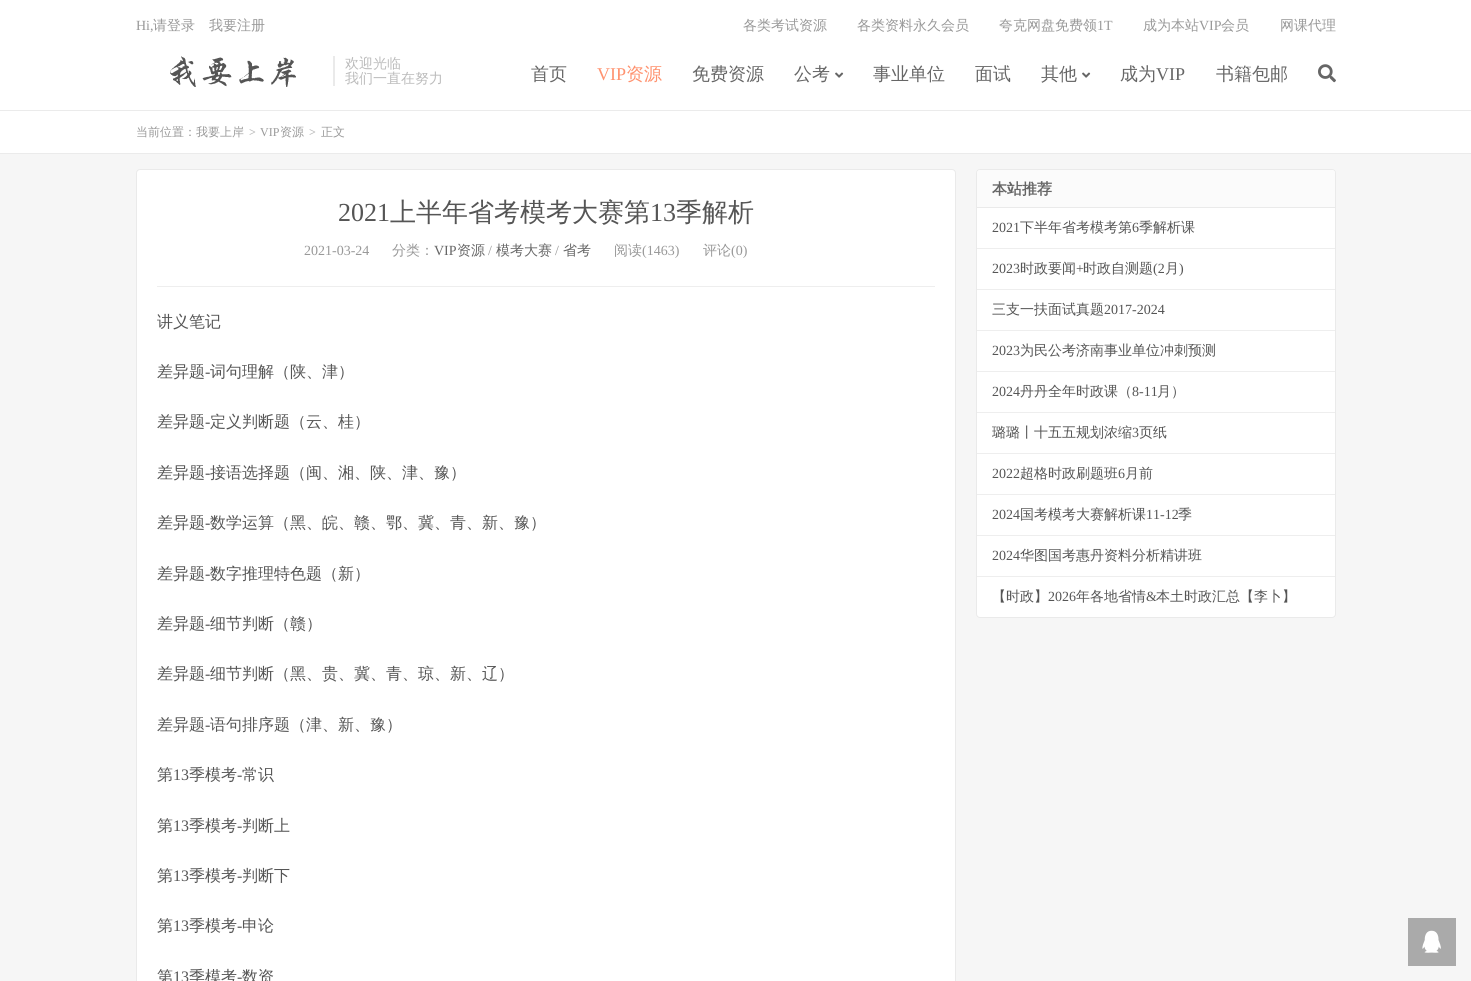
import math
import cairo



def rounded_rect(context, x, y, w, h, r):
    context.new_sub_path()
    for i, (u, v) in enumerate([(x + w - r, y + h - r), (x + r, y + h - r), (x + r, y + r), (x + w - r, y + r)]):
        context.arc(u, v, r, i * math.pi / 2, (i + 1) * math.pi / 2)
    context.close_path()


def draw_image(context, path, x, y, w, h):
    context.save()
    context.set_source_surface(cairo.ImageSurface.create_from_png(path), x, y)
    context.rectangle(x, y, w, h)
    context.fill()
    context.restore()


def draw(context):
    context.set_source_rgb(246 / 255, 246 / 255, 246 / 255)
    context.paint()
    context.set_source_rgb(1, 1, 1)
    context.rectangle(0, 0, 1471, 110)
    context.fill()
    context.set_source_rgb(235 / 255, 235 / 255, 235 / 255)
    context.rectangle(0, 110, 1471, 1)
    context.fill()
    draw_image(context, "images/1.png", 170, 56, 126, 31)
    context.set_source_rgb(234 / 255, 234 / 255, 234 / 255)
    context.rectangle(333, 56, 2, 30)
    context.fill()
    draw_image(context, "images/2.png", 835, 72, 9, 6)
    draw_image(context, "images/2.png", 1082, 72, 9, 6)
    draw_image(context, "images/3.png", 1318, 64, 18, 19)
    context.set_source_rgb(1, 1, 1)
    context.rectangle(0, 111, 1471, 42)
    context.fill()
    context.set_source_rgb(235 / 255, 235 / 255, 235 / 255)
    context.rectangle(0, 153, 1471, 1)
    context.fill()
    context.set_source_rgb(1, 1, 1)
    rounded_rect(context, 136.5, 169.5, 819, 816, 3.5)
    context.fill_preserve()
    context.set_source_rgb(234 / 255, 234 / 255, 234 / 255)
    context.set_line_width(1)
    context.stroke()
    context.set_source_rgb(238 / 255, 238 / 255, 238 / 255)
    context.rectangle(157, 286, 778, 1)
    context.fill()
    context.set_source_rgb(1, 1, 1)
    rounded_rect(context, 976.5, 169.5, 359, 448, 3.5)
    context.fill_preserve()
    context.set_source_rgb(234 / 255, 234 / 255, 234 / 255)
    context.stroke()
    context.set_source_rgb(251 / 255, 251 / 255, 251 / 255)
    context.new_path()
    context.move_to(980, 170)
    context.line_to(1332, 170)
    context.curve_to(1333.5, 170, 1335, 171.5, 1335, 173)
    context.line_to(1335, 208)
    context.line_to(977, 208)
    context.line_to(977, 173)
    context.curve_to(977, 171.5, 978.5, 170, 980, 170)
    context.close_path()
    context.fill()
    context.set_source_rgb(234 / 255, 234 / 255, 234 / 255)
    context.rectangle(977, 207, 358, 1)
    context.fill()
    context.set_source_rgb(238 / 255, 238 / 255, 238 / 255)
    context.rectangle(977, 248, 358, 1)
    context.fill()
    context.rectangle(977, 289, 358, 1)
    context.fill()
    context.rectangle(977, 330, 358, 1)
    context.fill()
    context.rectangle(977, 371, 358, 1)
    context.fill()
    context.rectangle(977, 412, 358, 1)
    context.fill()
    context.rectangle(977, 453, 358, 1)
    context.fill()
    context.rectangle(977, 494, 358, 1)
    context.fill()
    context.rectangle(977, 535, 358, 1)
    context.fill()
    context.rectangle(977, 576, 358, 1)
    context.fill()
    context.set_source_rgb(170 / 255, 170 / 255, 170 / 255)
    context.rectangle(1408, 918, 48, 48)
    context.fill()
    draw_image(context, "images/4.png", 1422, 930, 19, 23)
    context.select_font_face("Liberation Serif")
    context.set_font_size(14)
    context.set_source_rgb(153 / 255, 153 / 255, 153 / 255)
    context.move_to(136, 30)
    context.show_text("Hi,")
    context.select_font_face("WenQuanYi Zen Hei Medium")
    context.move_to(153, 30)
    context.show_text("请登录")
    context.move_to(209, 30)
    context.show_text("我要注册")
    context.move_to(743, 30)
    context.show_text("各类考试资源")
    context.move_to(857, 30)
    context.show_text("各类资料永久会员")
    context.move_to(999, 30)
    context.show_text("夸克网盘免费领")
    context.select_font_face("Liberation Serif")
    context.move_to(1097, 30)
    context.show_text("1T")
    context.select_font_face("WenQuanYi Zen Hei Medium")
    context.move_to(1143, 30)
    context.show_text("成为本站")
    context.select_font_face("Liberation Serif")
    context.move_to(1199, 30)
    context.show_text("VIP")
    context.select_font_face("WenQuanYi Zen Hei Medium")
    context.move_to(1221, 30)
    context.show_text("会员")
    context.move_to(1280, 30)
    context.show_text("网课代理")
    context.set_source_rgb(187 / 255, 187 / 255, 187 / 255)
    context.move_to(345, 68)
    context.show_text("欢迎光临")
    context.move_to(345, 83)
    context.show_text("我们一直在努力")
    context.set_font_size(18)
    context.set_source_rgb(102 / 255, 102 / 255, 102 / 255)
    context.move_to(531, 80)
    context.show_text("首页")
    context.select_font_face("Liberation Serif")
    context.set_source_rgb(1, 146 / 255, 111 / 255)
    context.move_to(597, 80)
    context.show_text("VIP")
    context.select_font_face("WenQuanYi Zen Hei Medium")
    context.move_to(626, 80)
    context.show_text("资源")
    context.set_source_rgb(102 / 255, 102 / 255, 102 / 255)
    context.move_to(692, 80)
    context.show_text("免费资源")
    context.move_to(794, 80)
    context.show_text("公考")
    context.move_to(873, 80)
    context.show_text("事业单位")
    context.move_to(975, 80)
    context.show_text("面试")
    context.move_to(1041, 80)
    context.show_text("其他")
    context.move_to(1120, 80)
    context.show_text("成为")
    context.select_font_face("Liberation Serif")
    context.move_to(1156, 80)
    context.show_text("VIP")
    context.select_font_face("WenQuanYi Zen Hei Medium")
    context.move_to(1216, 80)
    context.show_text("书籍包邮")
    context.set_font_size(12)
    context.set_source_rgb(153 / 255, 153 / 255, 153 / 255)
    context.move_to(136, 136)
    context.show_text("当前位置：我要上岸")
    context.select_font_face("Liberation Serif", cairo.FontSlant.NORMAL, cairo.FontWeight.BOLD)
    context.set_source_rgb(187 / 255, 187 / 255, 187 / 255)
    context.move_to(249, 136)
    context.show_text(">")
    context.select_font_face("Liberation Serif")
    context.set_source_rgb(153 / 255, 153 / 255, 153 / 255)
    context.move_to(260, 136)
    context.show_text("VIP")
    context.select_font_face("WenQuanYi Zen Hei Medium")
    context.move_to(280, 136)
    context.show_text("资源")
    context.select_font_face("Liberation Serif", cairo.FontSlant.NORMAL, cairo.FontWeight.BOLD)
    context.set_source_rgb(187 / 255, 187 / 255, 187 / 255)
    context.move_to(309, 136)
    context.show_text(">")
    context.select_font_face("WenQuanYi Zen Hei Medium")
    context.set_source_rgb(153 / 255, 153 / 255, 153 / 255)
    context.move_to(321, 136)
    context.show_text("正文")
    context.select_font_face("Liberation Serif")
    context.set_font_size(26)
    context.set_source_rgb(85 / 255, 85 / 255, 85 / 255)
    context.move_to(338, 221)
    context.show_text("2021")
    context.select_font_face("WenQuanYi Zen Hei Medium")
    context.move_to(390, 221)
    context.show_text("上半年省考模考大赛第")
    context.select_font_face("Liberation Serif")
    context.move_to(650, 221)
    context.show_text("13")
    context.select_font_face("WenQuanYi Zen Hei Medium")
    context.move_to(676, 221)
    context.show_text("季解析")
    context.select_font_face("Liberation Serif")
    context.set_font_size(14)
    context.set_source_rgb(153 / 255, 153 / 255, 153 / 255)
    context.move_to(304, 255)
    context.show_text("2021-03-24")
    context.select_font_face("WenQuanYi Zen Hei Medium")
    context.move_to(392, 255)
    context.show_text("分类：")
    context.select_font_face("Liberation Serif")
    context.set_source_rgb(102 / 255, 102 / 255, 102 / 255)
    context.move_to(434, 255)
    context.show_text("VIP")
    context.select_font_face("WenQuanYi Zen Hei Medium")
    context.move_to(457, 255)
    context.show_text("资源")
    context.select_font_face("Liberation Serif")
    context.set_source_rgb(153 / 255, 153 / 255, 153 / 255)
    context.move_to(488, 255)
    context.show_text("/")
    context.select_font_face("WenQuanYi Zen Hei Medium")
    context.set_source_rgb(102 / 255, 102 / 255, 102 / 255)
    context.move_to(496, 255)
    context.show_text("模考大赛")
    context.select_font_face("Liberation Serif")
    context.set_source_rgb(153 / 255, 153 / 255, 153 / 255)
    context.move_to(555, 255)
    context.show_text("/")
    context.select_font_face("WenQuanYi Zen Hei Medium")
    context.set_source_rgb(102 / 255, 102 / 255, 102 / 255)
    context.move_to(563, 255)
    context.show_text("省考")
    context.set_source_rgb(153 / 255, 153 / 255, 153 / 255)
    context.move_to(614, 255)
    context.show_text("阅读")
    context.select_font_face("Liberation Serif")
    context.move_to(642, 255)
    context.show_text("(1463)")
    context.select_font_face("WenQuanYi Zen Hei Medium")
    context.move_to(703, 255)
    context.show_text("评论")
    context.select_font_face("Liberation Serif")
    context.move_to(731, 255)
    context.show_text("(0)")
    context.select_font_face("WenQuanYi Zen Hei Medium")
    context.set_font_size(16)
    context.set_source_rgb(85 / 255, 85 / 255, 85 / 255)
    context.move_to(157, 327)
    context.show_text("讲义笔记")
    context.move_to(157, 377)
    context.show_text("差异题")
    context.select_font_face("Liberation Serif")
    context.move_to(205, 377)
    context.show_text("-")
    context.select_font_face("WenQuanYi Zen Hei Medium")
    context.move_to(210, 377)
    context.show_text("词句理解（陕、津）")
    context.move_to(157, 427)
    context.show_text("差异题")
    context.select_font_face("Liberation Serif")
    context.move_to(205, 427)
    context.show_text("-")
    context.select_font_face("WenQuanYi Zen Hei Medium")
    context.move_to(210, 427)
    context.show_text("定义判断题（云、桂）")
    context.move_to(157, 478)
    context.show_text("差异题")
    context.select_font_face("Liberation Serif")
    context.move_to(205, 478)
    context.show_text("-")
    context.select_font_face("WenQuanYi Zen Hei Medium")
    context.move_to(210, 478)
    context.show_text("接语选择题（闽、湘、陕、津、豫）")
    context.move_to(157, 528)
    context.show_text("差异题")
    context.select_font_face("Liberation Serif")
    context.move_to(205, 528)
    context.show_text("-")
    context.select_font_face("WenQuanYi Zen Hei Medium")
    context.move_to(210, 528)
    context.show_text("数学运算（黑、皖、赣、鄂、冀、青、新、豫）")
    context.move_to(157, 579)
    context.show_text("差异题")
    context.select_font_face("Liberation Serif")
    context.move_to(205, 579)
    context.show_text("-")
    context.select_font_face("WenQuanYi Zen Hei Medium")
    context.move_to(210, 579)
    context.show_text("数字推理特色题（新）")
    context.move_to(157, 629)
    context.show_text("差异题")
    context.select_font_face("Liberation Serif")
    context.move_to(205, 629)
    context.show_text("-")
    context.select_font_face("WenQuanYi Zen Hei Medium")
    context.move_to(210, 629)
    context.show_text("细节判断（赣）")
    context.move_to(157, 679)
    context.show_text("差异题")
    context.select_font_face("Liberation Serif")
    context.move_to(205, 679)
    context.show_text("-")
    context.select_font_face("WenQuanYi Zen Hei Medium")
    context.move_to(210, 679)
    context.show_text("细节判断（黑、贵、冀、青、琼、新、辽）")
    context.move_to(157, 730)
    context.show_text("差异题")
    context.select_font_face("Liberation Serif")
    context.move_to(205, 730)
    context.show_text("-")
    context.select_font_face("WenQuanYi Zen Hei Medium")
    context.move_to(210, 730)
    context.show_text("语句排序题（津、新、豫）")
    context.move_to(157, 780)
    context.show_text("第")
    context.select_font_face("Liberation Serif")
    context.move_to(173, 780)
    context.show_text("13")
    context.select_font_face("WenQuanYi Zen Hei Medium")
    context.move_to(189, 780)
    context.show_text("季模考")
    context.select_font_face("Liberation Serif")
    context.move_to(237, 780)
    context.show_text("-")
    context.select_font_face("WenQuanYi Zen Hei Medium")
    context.move_to(242, 780)
    context.show_text("常识")
    context.move_to(157, 831)
    context.show_text("第")
    context.select_font_face("Liberation Serif")
    context.move_to(173, 831)
    context.show_text("13")
    context.select_font_face("WenQuanYi Zen Hei Medium")
    context.move_to(189, 831)
    context.show_text("季模考")
    context.select_font_face("Liberation Serif")
    context.move_to(237, 831)
    context.show_text("-")
    context.select_font_face("WenQuanYi Zen Hei Medium")
    context.move_to(242, 831)
    context.show_text("判断上")
    context.move_to(157, 881)
    context.show_text("第")
    context.select_font_face("Liberation Serif")
    context.move_to(173, 881)
    context.show_text("13")
    context.select_font_face("WenQuanYi Zen Hei Medium")
    context.move_to(189, 881)
    context.show_text("季模考")
    context.select_font_face("Liberation Serif")
    context.move_to(237, 881)
    context.show_text("-")
    context.select_font_face("WenQuanYi Zen Hei Medium")
    context.move_to(242, 881)
    context.show_text("判断下")
    context.move_to(157, 931)
    context.show_text("第")
    context.select_font_face("Liberation Serif")
    context.move_to(173, 931)
    context.show_text("13")
    context.select_font_face("WenQuanYi Zen Hei Medium")
    context.move_to(189, 931)
    context.show_text("季模考")
    context.select_font_face("Liberation Serif")
    context.move_to(237, 931)
    context.show_text("-")
    context.select_font_face("WenQuanYi Zen Hei Medium")
    context.move_to(242, 931)
    context.show_text("申论")
    context.move_to(157, 982)
    context.show_text("第")
    context.select_font_face("Liberation Serif")
    context.move_to(173, 982)
    context.show_text("13")
    context.select_font_face("WenQuanYi Zen Hei Medium")
    context.move_to(189, 982)
    context.show_text("季模考")
    context.select_font_face("Liberation Serif")
    context.move_to(237, 982)
    context.show_text("-")
    context.select_font_face("WenQuanYi Zen Hei Medium")
    context.move_to(242, 982)
    context.show_text("数资")
    context.select_font_face("WenQuanYi Zen Hei", cairo.FontSlant.NORMAL, cairo.FontWeight.BOLD)
    context.set_font_size(15)
    context.set_source_rgb(102 / 255, 102 / 255, 102 / 255)
    context.move_to(992, 194)
    context.show_text("本站推荐")
    context.select_font_face("Liberation Serif")
    context.set_font_size(14)
    context.set_source_rgb(85 / 255, 85 / 255, 85 / 255)
    context.move_to(992, 232)
    context.show_text("2021")
    context.select_font_face("WenQuanYi Zen Hei Medium")
    context.move_to(1020, 232)
    context.show_text("下半年省考模考第")
    context.select_font_face("Liberation Serif")
    context.move_to(1132, 232)
    context.show_text("6")
    context.select_font_face("WenQuanYi Zen Hei Medium")
    context.move_to(1139, 232)
    context.show_text("季解析课")
    context.select_font_face("Liberation Serif")
    context.move_to(992, 273)
    context.show_text("2023")
    context.select_font_face("WenQuanYi Zen Hei Medium")
    context.move_to(1020, 273)
    context.show_text("时政要闻")
    context.select_font_face("Liberation Serif")
    context.move_to(1076, 273)
    context.show_text("+")
    context.select_font_face("WenQuanYi Zen Hei Medium")
    context.move_to(1083, 273)
    context.show_text("时政自测题")
    context.select_font_face("Liberation Serif")
    context.move_to(1153, 273)
    context.show_text("(2")
    context.select_font_face("WenQuanYi Zen Hei Medium")
    context.move_to(1165, 273)
    context.show_text("月")
    context.select_font_face("Liberation Serif")
    context.move_to(1179, 273)
    context.show_text(")")
    context.select_font_face("WenQuanYi Zen Hei Medium")
    context.move_to(992, 314)
    context.show_text("三支一扶面试真题")
    context.select_font_face("Liberation Serif")
    context.move_to(1104, 314)
    context.show_text("2017-2024")
    context.move_to(992, 355)
    context.show_text("2023")
    context.select_font_face("WenQuanYi Zen Hei Medium")
    context.move_to(1020, 355)
    context.show_text("为民公考济南事业单位冲刺预测")
    context.select_font_face("Liberation Serif")
    context.move_to(992, 396)
    context.show_text("2024")
    context.select_font_face("WenQuanYi Zen Hei Medium")
    context.move_to(1020, 396)
    context.show_text("丹丹全年时政课（")
    context.select_font_face("Liberation Serif")
    context.move_to(1132, 396)
    context.show_text("8-11")
    context.select_font_face("WenQuanYi Zen Hei Medium")
    context.move_to(1157, 396)
    context.show_text("月）")
    context.save()
    context.rectangle(992, 423, 328, 20)
    context.clip()
    context.move_to(992, 437)
    context.show_text("璐璐丨十五五规划浓缩")
    context.restore()
    context.select_font_face("Liberation Serif")
    context.move_to(1132, 437)
    context.show_text("3")
    context.select_font_face("WenQuanYi Zen Hei Medium")
    context.move_to(1139, 437)
    context.show_text("页纸")
    context.select_font_face("Liberation Serif")
    context.move_to(992, 478)
    context.show_text("2022")
    context.select_font_face("WenQuanYi Zen Hei Medium")
    context.move_to(1020, 478)
    context.show_text("超格时政刷题班")
    context.select_font_face("Liberation Serif")
    context.move_to(1118, 478)
    context.show_text("6")
    context.select_font_face("WenQuanYi Zen Hei Medium")
    context.move_to(1125, 478)
    context.show_text("月前")
    context.select_font_face("Liberation Serif")
    context.move_to(992, 519)
    context.show_text("2024")
    context.select_font_face("WenQuanYi Zen Hei Medium")
    context.move_to(1020, 519)
    context.show_text("国考模考大赛解析课")
    context.select_font_face("Liberation Serif")
    context.move_to(1146, 519)
    context.show_text("11-12")
    context.select_font_face("WenQuanYi Zen Hei Medium")
    context.move_to(1178, 519)
    context.show_text("季")
    context.select_font_face("Liberation Serif")
    context.move_to(992, 560)
    context.show_text("2024")
    context.select_font_face("WenQuanYi Zen Hei Medium")
    context.move_to(1020, 560)
    context.show_text("华图国考惠丹资料分析精讲班")
    context.move_to(992, 601)
    context.show_text("【时政】")
    context.select_font_face("Liberation Serif")
    context.move_to(1048, 601)
    context.show_text("2026")
    context.select_font_face("WenQuanYi Zen Hei Medium")
    context.move_to(1076, 601)
    context.show_text("年各地省情")
    context.select_font_face("Liberation Serif")
    context.move_to(1146, 601)
    context.show_text("&")
    context.select_font_face("WenQuanYi Zen Hei Medium")
    context.move_to(1156, 601)
    context.show_text("本土时政汇总【李卜】")


surface = cairo.ImageSurface(cairo.Format.RGB24, 1471, 981)
context = cairo.Context(surface)
options = cairo.FontOptions()
options.set_hint_metrics(cairo.HintMetrics.OFF)
options.set_hint_style(cairo.HintStyle.NONE)
context.set_font_options(options)
context.set_miter_limit(4)
draw(context)
surface.write_to_png("out.png")
